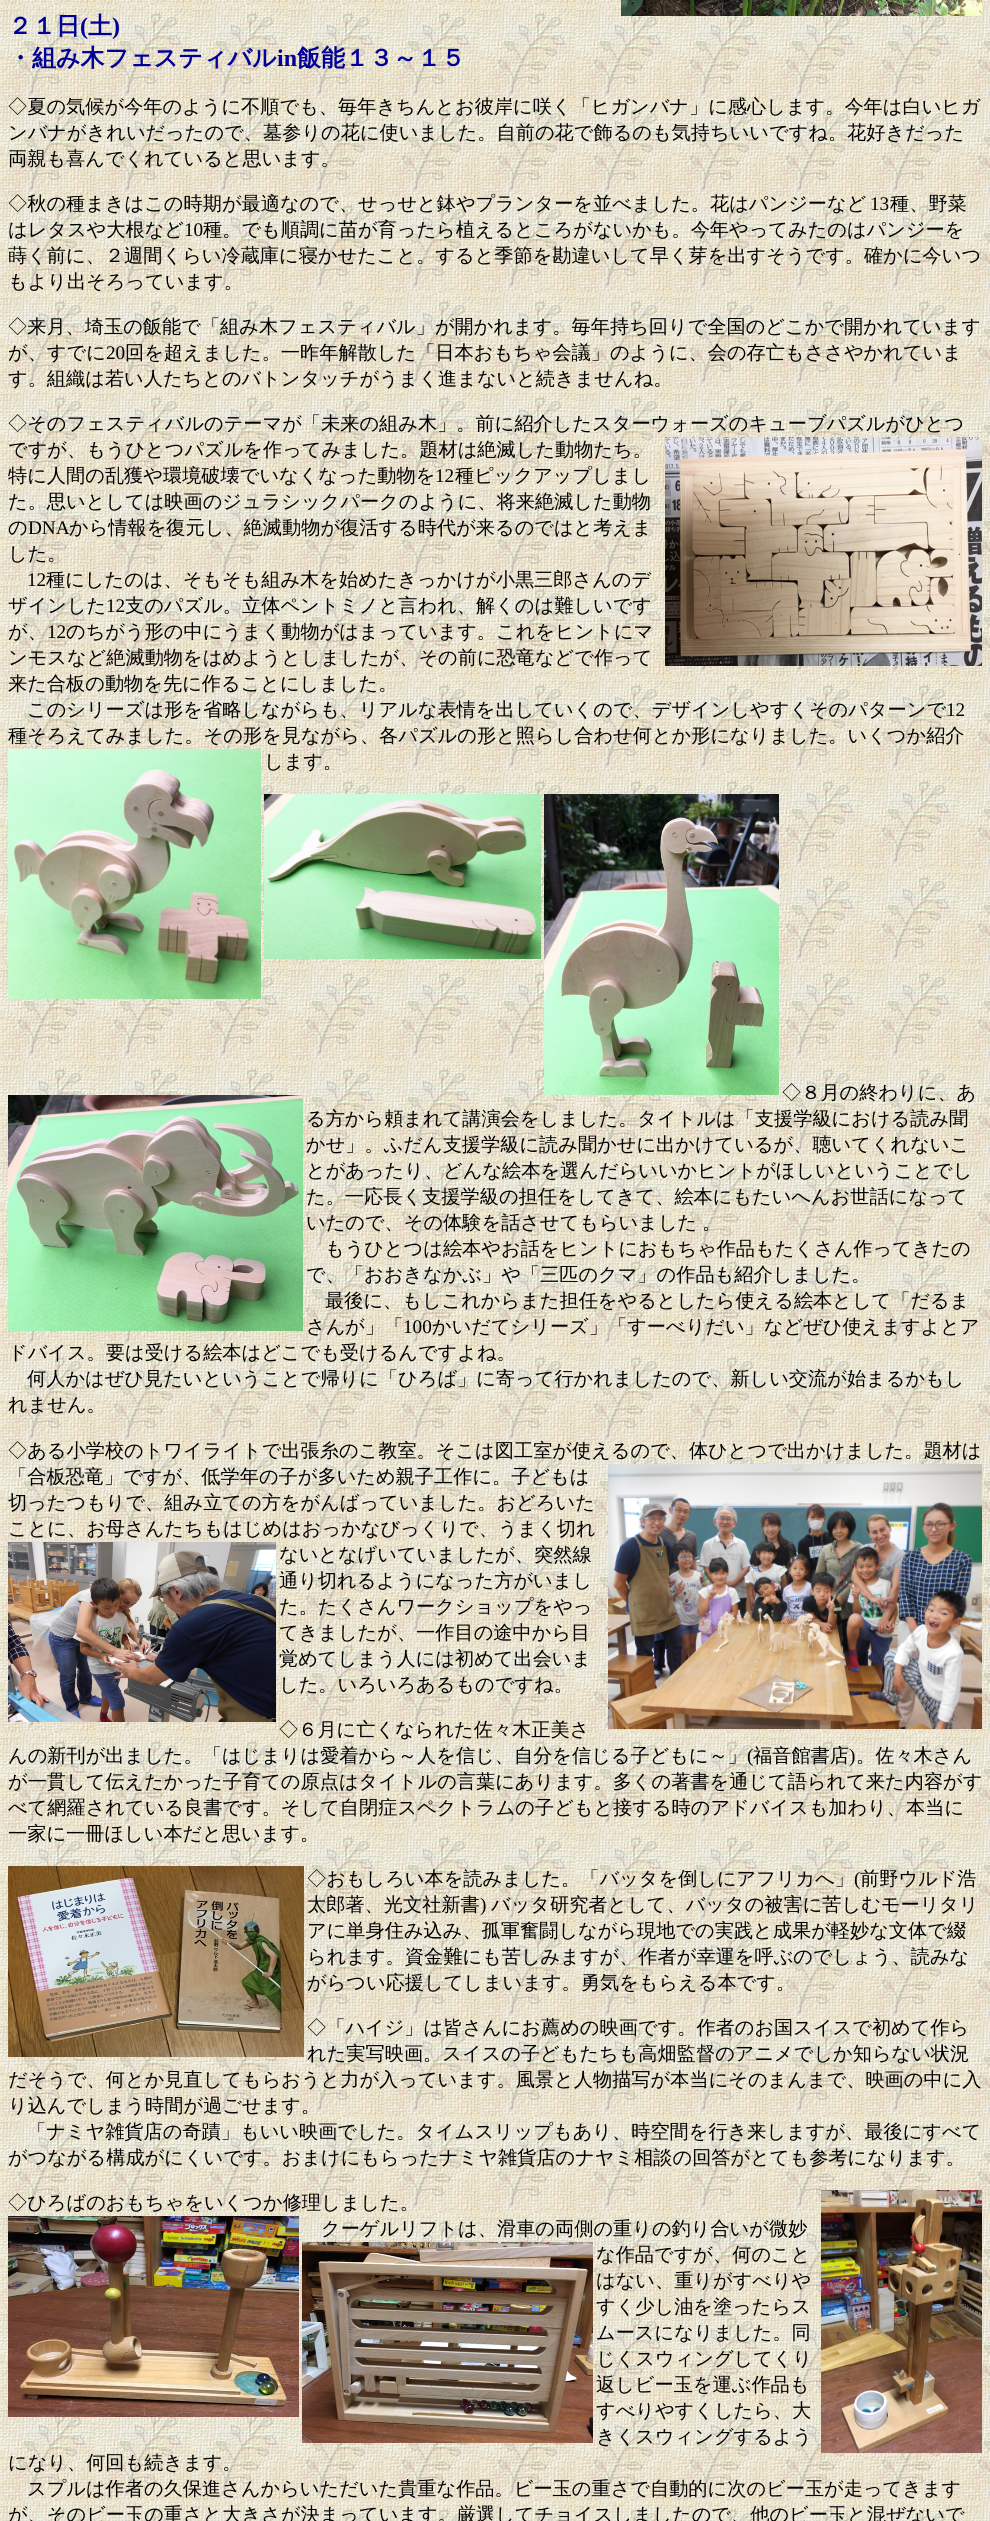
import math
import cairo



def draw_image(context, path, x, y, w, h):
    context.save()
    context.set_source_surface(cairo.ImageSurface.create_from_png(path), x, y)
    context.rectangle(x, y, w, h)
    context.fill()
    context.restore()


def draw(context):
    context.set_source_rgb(1, 1, 1)
    context.paint()
    draw_image(context, "images/1.png", 0, 0, 990, 2521)
    draw_image(context, "images/2.png", 621, 0, 361, 16)
    draw_image(context, "images/3.png", 665, 437, 317, 229)
    draw_image(context, "images/4.png", 8, 749, 253, 250)
    draw_image(context, "images/5.png", 264, 794, 277, 165)
    draw_image(context, "images/6.png", 544, 794, 235, 301)
    draw_image(context, "images/7.png", 8, 1095, 295, 236)
    draw_image(context, "images/8.png", 608, 1464, 374, 265)
    draw_image(context, "images/9.png", 8, 1542, 268, 180)
    draw_image(context, "images/10.png", 8, 1866, 296, 191)
    draw_image(context, "images/11.png", 821, 2190, 161, 263)
    draw_image(context, "images/12.png", 8, 2216, 291, 201)
    draw_image(context, "images/13.png", 302, 2242, 291, 201)
    context.select_font_face("WenQuanYi Zen Hei", cairo.FontSlant.NORMAL, cairo.FontWeight.BOLD)
    context.set_font_size(24)
    context.set_source_rgb(0, 0, 153 / 255)
    context.move_to(8, 34)
    context.show_text("２１日")
    context.select_font_face("Liberation Serif", cairo.FontSlant.NORMAL, cairo.FontWeight.BOLD)
    context.move_to(80, 34)
    context.show_text("(")
    context.select_font_face("WenQuanYi Zen Hei", cairo.FontSlant.NORMAL, cairo.FontWeight.BOLD)
    context.move_to(88, 34)
    context.show_text("土")
    context.select_font_face("Liberation Serif", cairo.FontSlant.NORMAL, cairo.FontWeight.BOLD)
    context.move_to(112, 34)
    context.show_text(")")
    context.select_font_face("WenQuanYi Zen Hei", cairo.FontSlant.NORMAL, cairo.FontWeight.BOLD)
    context.move_to(8, 66)
    context.show_text("・組み木フェスティバル")
    context.select_font_face("Liberation Serif", cairo.FontSlant.NORMAL, cairo.FontWeight.BOLD)
    context.move_to(277, 66)
    context.show_text("in")
    context.select_font_face("WenQuanYi Zen Hei", cairo.FontSlant.NORMAL, cairo.FontWeight.BOLD)
    context.move_to(297, 66)
    context.show_text("飯能１３～１５")
    context.select_font_face("WenQuanYi Zen Hei Medium")
    context.set_font_size(19.2)
    context.set_source_rgb(0, 0, 0)
    context.move_to(8, 113)
    context.show_text("◇夏の気候が今年のように不順でも、毎年きちんとお彼岸に咲く「ヒガンバナ」に感心します。今年は白いヒガ")
    context.move_to(8, 139)
    context.show_text("ンバナがきれいだったので、墓参りの花に使いました。自前の花で飾るのも気持ちいいですね。花好きだった")
    context.move_to(8, 165)
    context.show_text("両親も喜んでくれていると思います。")
    context.move_to(8, 210)
    context.show_text("◇秋の種まきはこの時期が最適なので、せっせと鉢やプランターを並べました。花はパンジーなど")
    context.select_font_face("Liberation Serif")
    context.move_to(870, 210)
    context.show_text("13")
    context.select_font_face("WenQuanYi Zen Hei Medium")
    context.move_to(890, 210)
    context.show_text("種、野菜")
    context.move_to(8, 236)
    context.show_text("はレタスや大根など")
    context.select_font_face("Liberation Serif")
    context.move_to(184, 236)
    context.show_text("10")
    context.select_font_face("WenQuanYi Zen Hei Medium")
    context.move_to(203, 236)
    context.show_text("種。でも順調に苗が育ったら植えるところがないかも。今年やってみたのはパンジーを")
    context.move_to(8, 262)
    context.show_text("蒔く前に、２週間くらい冷蔵庫に寝かせたこと。すると季節を勘違いして早く芽を出すそうです。確かに今いつ")
    context.move_to(8, 288)
    context.show_text("もより出そろっています。")
    context.move_to(8, 333)
    context.show_text("◇来月、埼玉の飯能で「組み木フェスティバル」が開かれます。毎年持ち回りで全国のどこかで開かれています")
    context.move_to(8, 359)
    context.show_text("が、すでに")
    context.select_font_face("Liberation Serif")
    context.move_to(106, 359)
    context.show_text("20")
    context.select_font_face("WenQuanYi Zen Hei Medium")
    context.move_to(125, 359)
    context.show_text("回を超えました。一昨年解散した「日本おもちゃ会議」のように、会の存亡もささやかれていま")
    context.move_to(8, 385)
    context.show_text("す。組織は若い人たちとのバトンタッチがうまく進まないと続きませんね。")
    context.move_to(8, 430)
    context.show_text("◇そのフェスティバルのテーマが「未来の組み木」。前に紹介したスターウォーズのキューブパズルがひとつ")
    context.move_to(8, 456)
    context.show_text("ですが、もうひとつパズルを作ってみました。題材は絶滅した動物たち。")
    context.move_to(8, 482)
    context.show_text("特に人間の乱獲や環境破壊でいなくなった動物を")
    context.select_font_face("Liberation Serif")
    context.move_to(435, 482)
    context.show_text("12")
    context.select_font_face("WenQuanYi Zen Hei Medium")
    context.move_to(455, 482)
    context.show_text("種ピックアップしまし")
    context.move_to(8, 508)
    context.show_text("た。思いとしては映画のジュラシックパークのように、将来絶滅した動物")
    context.move_to(8, 534)
    context.show_text("の")
    context.select_font_face("Liberation Serif")
    context.move_to(28, 534)
    context.show_text("DNA")
    context.select_font_face("WenQuanYi Zen Hei Medium")
    context.move_to(69, 534)
    context.show_text("から情報を復元し、絶滅動物が復活する時代が来るのではと考えま")
    context.move_to(8, 560)
    context.show_text("した。")
    context.select_font_face("Liberation Serif")
    context.move_to(27, 586)
    context.show_text("12")
    context.select_font_face("WenQuanYi Zen Hei Medium")
    context.move_to(46, 586)
    context.show_text("種にしたのは、そもそも組み木を始めたきっかけが小黒三郎さんのデ")
    context.move_to(8, 612)
    context.show_text("ザインした")
    context.select_font_face("Liberation Serif")
    context.move_to(106, 612)
    context.show_text("12")
    context.select_font_face("WenQuanYi Zen Hei Medium")
    context.move_to(125, 612)
    context.show_text("支のパズル。立体ペントミノと言われ、解くのは難しいです")
    context.move_to(8, 638)
    context.show_text("が、")
    context.select_font_face("Liberation Serif")
    context.move_to(47, 638)
    context.show_text("12")
    context.select_font_face("WenQuanYi Zen Hei Medium")
    context.move_to(66, 638)
    context.show_text("のちがう形の中にうまく動物がはまっています。これをヒントにマ")
    context.move_to(8, 664)
    context.show_text("ンモスなど絶滅動物をはめようとしましたが、その前に恐竜などで作って")
    context.move_to(8, 690)
    context.show_text("来た合板の動物を先に作ることにしました。")
    context.move_to(27, 716)
    context.show_text("このシリーズは形を省略しながらも、リアルな表情を出していくので、デザインしやすくそのパターンで")
    context.select_font_face("Liberation Serif")
    context.move_to(946, 716)
    context.show_text("12")
    context.select_font_face("WenQuanYi Zen Hei Medium")
    context.move_to(8, 742)
    context.show_text("種そろえてみました。その形を見ながら、各パズルの形と照らし合わせ何とか形になりました。いくつか紹介")
    context.move_to(264, 768)
    context.show_text("します。")
    context.move_to(782, 1099)
    context.show_text("◇８月の終わりに、あ")
    context.move_to(306, 1125)
    context.show_text("る方から頼まれて講演会をしました。タイトルは「支援学級における読み聞")
    context.move_to(306, 1151)
    context.show_text("かせ」。ふだん支援学級に読み聞かせに出かけているが、聴いてくれないこ")
    context.move_to(306, 1177)
    context.show_text("とがあったり、どんな絵本を選んだらいいかヒントがほしいということでし")
    context.move_to(306, 1203)
    context.show_text("た。一応長く支援学級の担任をしてきて、絵本にもたいへんお世話になって")
    context.move_to(306, 1229)
    context.show_text("いたので、その体験を話させてもらいました")
    context.move_to(702, 1229)
    context.show_text("。")
    context.move_to(325, 1255)
    context.show_text("もうひとつは絵本やお話をヒントにおもちゃ作品もたくさん作ってきたの")
    context.move_to(306, 1281)
    context.show_text("で、「おおきなかぶ」や「三匹のクマ」の作品も紹介しました。")
    context.move_to(325, 1307)
    context.show_text("最後に、もしこれからまた担任をやるとしたら使える絵本として「だるま")
    context.move_to(306, 1333)
    context.show_text("さんが」「")
    context.select_font_face("Liberation Serif")
    context.move_to(403, 1333)
    context.show_text("100")
    context.select_font_face("WenQuanYi Zen Hei Medium")
    context.move_to(432, 1333)
    context.show_text("かいだてシリーズ」「すーべりだい」などぜひ使えますよとア")
    context.move_to(8, 1359)
    context.show_text("ドバイス。要は受ける絵本はどこでも受けるんですよね。")
    context.move_to(27, 1385)
    context.show_text("何人かはぜひ見たいということで帰りに「ひろば」に寄って行かれましたので、新しい交流が始まるかもし")
    context.move_to(8, 1411)
    context.show_text("れません。")
    context.move_to(8, 1457)
    context.show_text("◇ある小学校のトワイライトで出張糸のこ教室。そこは図工室が使えるので、体ひとつで出かけました。題材は")
    context.move_to(8, 1483)
    context.show_text("「合板恐竜」ですが、低学年の子が多いため親子工作に。子どもは")
    context.move_to(8, 1509)
    context.show_text("切ったつもりで、組み立ての方をがんばっていました。おどろいた")
    context.move_to(8, 1535)
    context.show_text("ことに、お母さんたちもはじめはおっかなびっくりで、うまく切れ")
    context.move_to(279, 1561)
    context.show_text("ないとなげいていましたが、突然線")
    context.move_to(279, 1587)
    context.show_text("通り切れるようになった方がいまし")
    context.move_to(279, 1613)
    context.show_text("た。たくさんワークショップをやっ")
    context.move_to(279, 1639)
    context.show_text("てきましたが、一作目の途中から目")
    context.move_to(279, 1665)
    context.show_text("覚めてしまう人には初めて出会いま")
    context.move_to(279, 1691)
    context.show_text("した。いろいろあるものですね。")
    context.move_to(279, 1736)
    context.show_text("◇６月に亡くなられた佐々木正美さ")
    context.move_to(8, 1762)
    context.show_text("んの新刊が出ました。「はじまりは愛着から～人を信じ、自分を信じる子どもに～」")
    context.select_font_face("Liberation Serif")
    context.move_to(747, 1762)
    context.show_text("(")
    context.select_font_face("WenQuanYi Zen Hei Medium")
    context.move_to(753, 1762)
    context.show_text("福音館書店")
    context.select_font_face("Liberation Serif")
    context.move_to(849, 1762)
    context.show_text(")")
    context.select_font_face("WenQuanYi Zen Hei Medium")
    context.move_to(856, 1762)
    context.show_text("。佐々木さん")
    context.move_to(8, 1788)
    context.show_text("が一貫して伝えたかった子育ての原点はタイトルの言葉にあります。多くの著書を通じて語られて来た内容がす")
    context.move_to(8, 1814)
    context.show_text("べて網羅されている良書です。そして自閉症スペクトラムの子どもと接する時のアドバイスも加わり、本当に")
    context.move_to(8, 1840)
    context.show_text("一家に一冊ほしい本だと思います。")
    context.move_to(307, 1885)
    context.show_text("◇おもしろい本を読みました。「バッタを倒しにアフリカへ」")
    context.select_font_face("Liberation Serif")
    context.move_to(854, 1885)
    context.show_text("(")
    context.select_font_face("WenQuanYi Zen Hei Medium")
    context.move_to(860, 1885)
    context.show_text("前野ウルド浩")
    context.move_to(307, 1911)
    context.show_text("太郎著、光文社新書")
    context.select_font_face("Liberation Serif")
    context.move_to(480, 1911)
    context.show_text(")")
    context.select_font_face("WenQuanYi Zen Hei Medium")
    context.move_to(491, 1911)
    context.show_text("バッタ研究者として、バッタの被害に苦しむモーリタリ")
    context.move_to(307, 1937)
    context.show_text("アに単身住み込み、孤軍奮闘しながら現地での実践と成果が軽妙な文体で綴")
    context.move_to(307, 1963)
    context.show_text("られます。資金難にも苦しみますが、作者が幸運を呼ぶのでしょう、読みな")
    context.move_to(307, 1989)
    context.show_text("がらつい応援してしまいます。勇気をもらえる本です。")
    context.move_to(307, 2034)
    context.show_text("◇「ハイジ」は皆さんにお薦めの映画です。作者のお国スイスで初めて作ら")
    context.move_to(307, 2060)
    context.show_text("れた実写映画。スイスの子どもたちも高畑監督のアニメでしか知らない状況")
    context.move_to(8, 2086)
    context.show_text("だそうで、何とか見直してもらおうと力が入っています。風景と人物描写が本当にそのまんまで、映画の中に入")
    context.move_to(8, 2112)
    context.show_text("り込んでしまう時間が過ごせます。")
    context.move_to(27, 2138)
    context.show_text("「ナミヤ雑貨店の奇蹟」もいい映画でした。タイムスリップもあり、時空間を行き来しますが、最後にすべて")
    context.move_to(8, 2164)
    context.show_text("がつながる構成がにくいです。おまけにもらったナミヤ雑貨店のナヤミ相談の回答がとても参考になります。")
    context.move_to(8, 2209)
    context.show_text("◇ひろばのおもちゃをいくつか修理しました。")
    context.move_to(321, 2235)
    context.show_text("クーゲルリフトは、滑車の両側の重りの釣り合いが")
    context.move_to(769, 2235)
    context.show_text("微妙")
    context.move_to(596, 2261)
    context.show_text("な作品ですが、何のこと")
    context.move_to(596, 2287)
    context.show_text("はない、重りがすべりや")
    context.move_to(596, 2313)
    context.show_text("すく少し油を塗ったらス")
    context.move_to(596, 2339)
    context.show_text("ムースになりました。同")
    context.move_to(596, 2365)
    context.show_text("じくスウィングしてくり")
    context.move_to(596, 2391)
    context.show_text("返しビー玉を運ぶ作品も")
    context.move_to(596, 2417)
    context.show_text("すべりやすくしたら、大")
    context.move_to(596, 2443)
    context.show_text("きくスウィングするよう")
    context.move_to(8, 2469)
    context.show_text("になり、何回も続きます。")
    context.move_to(27, 2495)
    context.show_text("スプルは作者の久保進さんからいただいた貴重な作品。ビー玉の重さで自動的に次のビー玉が走ってきます")
    context.move_to(8, 2521)
    context.show_text("が、そのビー玉の重さと大きさが決まっています。厳選してチョイスしましたので、他のビー玉と混ぜないで")


surface = cairo.ImageSurface(cairo.Format.RGB24, 990, 2521)
context = cairo.Context(surface)
options = cairo.FontOptions()
options.set_hint_metrics(cairo.HintMetrics.OFF)
options.set_hint_style(cairo.HintStyle.NONE)
context.set_font_options(options)
context.set_miter_limit(4)
draw(context)
surface.write_to_png("out.png")
